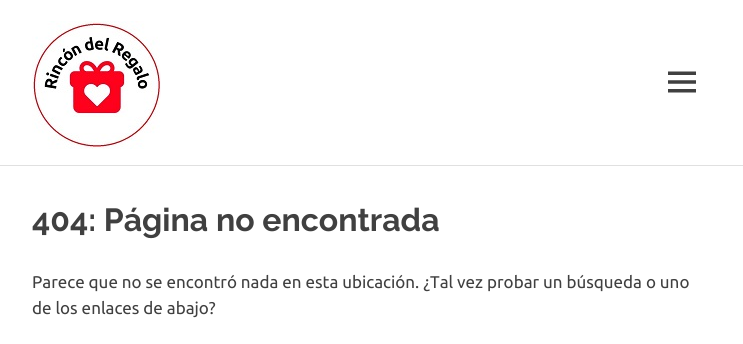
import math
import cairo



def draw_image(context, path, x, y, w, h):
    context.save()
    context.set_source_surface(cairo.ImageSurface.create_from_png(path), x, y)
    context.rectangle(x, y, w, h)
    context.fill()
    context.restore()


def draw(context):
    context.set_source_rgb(1, 1, 1)
    context.paint()
    context.set_source_rgb(224 / 255, 224 / 255, 224 / 255)
    context.rectangle(0, 165, 743, 1)
    context.fill()
    draw_image(context, "images/1.png", 32, 21, 129, 128)
    draw_image(context, "images/2.png", 668, 71, 28, 22)
    context.select_font_face("Raleway Thin")
    context.set_font_size(32)
    context.set_source_rgb(64 / 255, 64 / 255, 64 / 255)
    context.move_to(32, 231)
    context.show_text("404: Página no encontrada")
    context.select_font_face("Ubuntu")
    context.set_font_size(17)
    context.move_to(32, 288)
    context.show_text("Parece que no se encontró nada en esta ubicación. ¿Tal vez probar un búsqueda o uno")
    context.move_to(32, 314)
    context.show_text("de los enlaces de abajo?")


surface = cairo.ImageSurface(cairo.Format.RGB24, 743, 344)
context = cairo.Context(surface)
options = cairo.FontOptions()
options.set_hint_metrics(cairo.HintMetrics.OFF)
options.set_hint_style(cairo.HintStyle.NONE)
context.set_font_options(options)
context.set_miter_limit(4)
draw(context)
surface.write_to_png("out.png")
